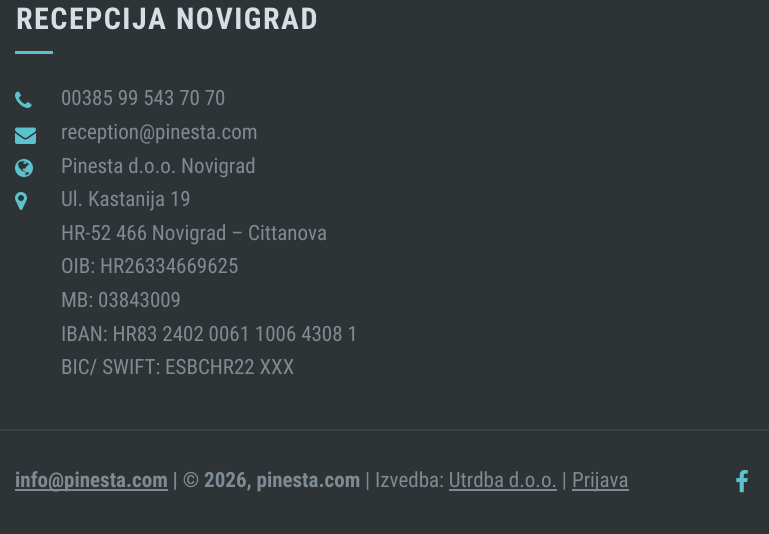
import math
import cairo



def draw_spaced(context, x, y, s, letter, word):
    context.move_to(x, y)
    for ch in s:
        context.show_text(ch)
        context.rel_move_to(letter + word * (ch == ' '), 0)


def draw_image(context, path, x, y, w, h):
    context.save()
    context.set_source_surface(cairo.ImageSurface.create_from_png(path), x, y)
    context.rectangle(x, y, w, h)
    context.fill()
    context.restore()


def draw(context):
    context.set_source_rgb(46 / 255, 51 / 255, 54 / 255)
    context.paint()
    context.set_source_rgb(57 / 255, 63 / 255, 66 / 255)
    context.rectangle(0, 429, 769, 2)
    context.fill()
    context.set_source_rgb(91 / 255, 194 / 255, 206 / 255)
    context.rectangle(15, 51, 38, 3)
    context.fill()
    draw_image(context, "images/1.png", 15, 91, 17, 17)
    draw_image(context, "images/2.png", 15, 127, 21, 17)
    draw_image(context, "images/3.png", 15, 159, 18, 18)
    draw_image(context, "images/4.png", 15, 192, 12, 18)
    context.set_source_rgb(126 / 255, 139 / 255, 147 / 255)
    context.rectangle(15, 489, 153, 2)
    context.fill()
    context.rectangle(572, 489, 57, 2)
    context.fill()
    context.rectangle(449, 489, 108, 2)
    context.fill()
    draw_image(context, "images/5.png", 736, 469, 12, 24)
    context.select_font_face("Roboto Condensed", cairo.FontSlant.NORMAL, cairo.FontWeight.BOLD)
    context.set_font_size(30)
    context.set_source_rgb(213 / 255, 223 / 255, 229 / 255)
    draw_spaced(context, 16, 29, "RECEPCIJA NOVIGRAD", 1.5, 0)
    context.select_font_face("Roboto Condensed")
    context.set_font_size(21)
    context.set_source_rgb(126 / 255, 139 / 255, 147 / 255)
    context.move_to(61, 105)
    context.show_text("00385 99 543 70 70")
    context.move_to(61, 139)
    context.show_text("reception@pinesta.com")
    context.move_to(61, 173)
    context.show_text("Pinesta d.o.o. Novigrad")
    context.move_to(61, 206)
    context.show_text("Ul. Kastanija 19")
    context.move_to(61, 240)
    context.show_text("HR-52 466 Novigrad – Cittanova")
    context.move_to(61, 273)
    context.show_text("OIB: HR26334669625")
    context.move_to(61, 307)
    context.show_text("MB: 03843009")
    context.move_to(61, 341)
    context.show_text("IBAN: HR83 2402 0061 1006 4308 1")
    context.move_to(61, 374)
    context.show_text("BIC/ SWIFT: ESBCHR22 XXX")
    context.select_font_face("Roboto Condensed", cairo.FontSlant.NORMAL, cairo.FontWeight.BOLD)
    context.move_to(15, 487)
    context.show_text("info@pinesta.com | © 2026, pinesta.com")
    context.select_font_face("Roboto Condensed")
    context.move_to(365, 487)
    context.show_text("| Izvedba: Utrdba d.o.o. |")
    context.move_to(572, 487)
    context.show_text("Prijava")


surface = cairo.ImageSurface(cairo.Format.RGB24, 769, 534)
context = cairo.Context(surface)
options = cairo.FontOptions()
options.set_hint_metrics(cairo.HintMetrics.OFF)
options.set_hint_style(cairo.HintStyle.NONE)
context.set_font_options(options)
context.set_miter_limit(4)
draw(context)
surface.write_to_png("out.png")
